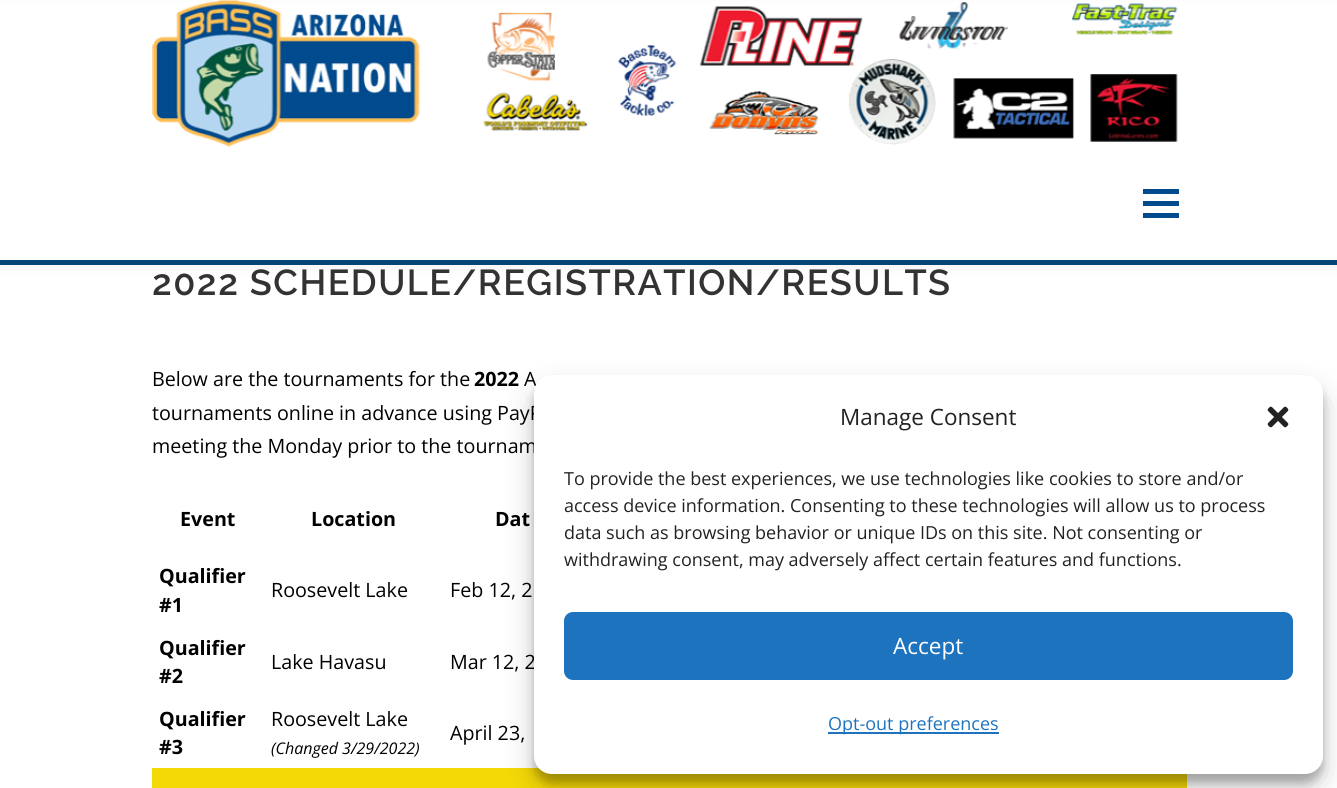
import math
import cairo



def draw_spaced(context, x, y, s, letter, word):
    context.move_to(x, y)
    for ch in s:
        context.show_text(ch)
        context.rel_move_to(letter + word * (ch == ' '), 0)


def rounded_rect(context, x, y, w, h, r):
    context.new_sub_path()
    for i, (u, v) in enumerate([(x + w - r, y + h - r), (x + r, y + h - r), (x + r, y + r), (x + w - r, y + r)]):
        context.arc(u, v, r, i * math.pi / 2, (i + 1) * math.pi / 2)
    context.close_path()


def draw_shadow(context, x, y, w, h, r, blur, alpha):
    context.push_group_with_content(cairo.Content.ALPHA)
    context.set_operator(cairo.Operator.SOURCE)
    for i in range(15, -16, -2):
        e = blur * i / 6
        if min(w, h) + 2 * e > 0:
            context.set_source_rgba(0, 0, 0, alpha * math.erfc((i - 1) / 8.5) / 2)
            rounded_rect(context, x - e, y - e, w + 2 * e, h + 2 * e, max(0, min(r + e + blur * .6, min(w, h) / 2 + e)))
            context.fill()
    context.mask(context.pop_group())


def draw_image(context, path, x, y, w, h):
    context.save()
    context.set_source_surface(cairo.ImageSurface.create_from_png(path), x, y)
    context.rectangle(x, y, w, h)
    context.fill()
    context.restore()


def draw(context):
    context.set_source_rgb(1, 1, 1)
    context.paint()
    context.set_source_rgb(0, 69 / 255, 121 / 255)
    context.rectangle(0, 260, 1337, 5)
    context.fill()
    context.set_source_rgb(50 / 255, 50 / 255, 50 / 255)
    draw_shadow(context, 0, 8, 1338, 259, 0, 7.5, 0.06)
    context.set_source_rgb(1, 1, 1)
    context.rectangle(0, 2, 1337, 258)
    context.fill()
    draw_image(context, "images/1.png", 152, 0, 1026, 147)
    context.set_source_rgb(0, 75 / 255, 142 / 255)
    context.rectangle(1143, 201, 36, 5)
    context.fill()
    context.rectangle(1143, 189, 36, 5)
    context.fill()
    context.rectangle(1143, 213, 36, 5)
    context.fill()
    context.set_source_rgb(245 / 255, 217 / 255, 7 / 255)
    context.rectangle(152, 768, 441, 20)
    context.fill()
    context.rectangle(593, 774, 594, 14)
    context.fill()
    context.set_source_rgb(0, 0, 0)
    draw_shadow(context, 534, 384, 789, 399, 18, 4.5, 0.23)
    draw_shadow(context, 534, 390, 789, 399, 18, 15, 0.19)
    context.select_font_face("Raleway SemiBold")
    context.set_font_size(36)
    context.set_source_rgb(51 / 255, 51 / 255, 51 / 255)
    draw_spaced(context, 152, 295, "2022 SCHEDULE/REGISTRATION/RESULTS", 1.5, 0)
    context.select_font_face("Open Sans")
    context.set_font_size(19.7)
    context.set_source_rgb(0, 0, 0)
    context.move_to(152, 386)
    context.show_text("Below are the tournaments for the")
    context.select_font_face("Open Sans", cairo.FontSlant.NORMAL, cairo.FontWeight.BOLD)
    context.move_to(474, 386)
    context.show_text("2022")
    context.select_font_face("Open Sans")
    context.move_to(524, 386)
    context.show_text("A")
    context.move_to(152, 420)
    context.show_text("tournaments online in advance using PayP")
    context.move_to(152, 453)
    context.show_text("meeting the Monday prior to the tournam")
    context.select_font_face("Open Sans", cairo.FontSlant.NORMAL, cairo.FontWeight.BOLD)
    context.move_to(180, 526)
    context.show_text("Event")
    context.move_to(311, 526)
    context.show_text("Location")
    context.move_to(495, 526)
    context.show_text("Dat")
    context.move_to(159, 583)
    context.show_text("Qualifier")
    context.move_to(159, 612)
    context.show_text("#1")
    context.select_font_face("Open Sans")
    context.move_to(271, 597)
    context.show_text("Roosevelt Lake")
    context.move_to(450, 597)
    context.show_text("Feb 12, 2")
    context.select_font_face("Open Sans", cairo.FontSlant.NORMAL, cairo.FontWeight.BOLD)
    context.move_to(159, 655)
    context.show_text("Qualifier")
    context.move_to(159, 683)
    context.show_text("#2")
    context.select_font_face("Open Sans")
    context.move_to(271, 669)
    context.show_text("Lake Havasu")
    context.move_to(450, 669)
    context.show_text("Mar 12, 2")
    context.select_font_face("Open Sans", cairo.FontSlant.NORMAL, cairo.FontWeight.BOLD)
    context.move_to(159, 726)
    context.show_text("Qualifier")
    context.move_to(159, 754)
    context.show_text("#3")
    context.select_font_face("Open Sans")
    context.move_to(271, 726)
    context.show_text("Roosevelt Lake")
    context.select_font_face("Open Sans", cairo.FontSlant.ITALIC)
    context.set_font_size(16)
    context.move_to(271, 754)
    context.show_text("(Changed 3/29/2022)")
    context.select_font_face("Open Sans")
    context.set_font_size(19.7)
    context.move_to(450, 740)
    context.show_text("April 23,")
    context.set_source_rgb(1, 1, 1)
    rounded_rect(context, 534, 375, 789, 399, 18)
    context.fill()
    context.set_font_size(22.5)
    context.set_source_rgb(34 / 255, 34 / 255, 34 / 255)
    context.move_to(840, 425)
    context.show_text("Manage Consent")
    draw_image(context, "images/2.png", 1267, 406, 22, 22)
    context.set_font_size(18)
    context.move_to(564, 485)
    context.show_text("To provide the best experiences, we use technologies like cookies to store and/or")
    context.move_to(564, 512)
    context.show_text("access device information. Consenting to these technologies will allow us to process")
    context.move_to(564, 539)
    context.show_text("data such as browsing behavior or unique IDs on this site. Not consenting or")
    context.move_to(564, 566)
    context.show_text("withdrawing consent, may adversely affect certain features and functions.")
    context.set_source_rgb(30 / 255, 115 / 255, 190 / 255)
    rounded_rect(context, 565, 613, 727, 66, 8)
    context.fill_preserve()
    context.stroke()
    context.set_font_size(22.5)
    context.set_source_rgb(1, 1, 1)
    context.move_to(893, 654)
    context.show_text("Accept")
    context.set_source_rgb(30 / 255, 115 / 255, 190 / 255)
    context.rectangle(828, 732, 171, 2)
    context.fill()
    context.set_font_size(18)
    context.move_to(828, 730)
    context.show_text("Opt-out preferences")


surface = cairo.ImageSurface(cairo.Format.RGB24, 1337, 788)
context = cairo.Context(surface)
options = cairo.FontOptions()
options.set_hint_metrics(cairo.HintMetrics.OFF)
options.set_hint_style(cairo.HintStyle.NONE)
context.set_font_options(options)
context.set_miter_limit(4)
draw(context)
surface.write_to_png("out.png")
